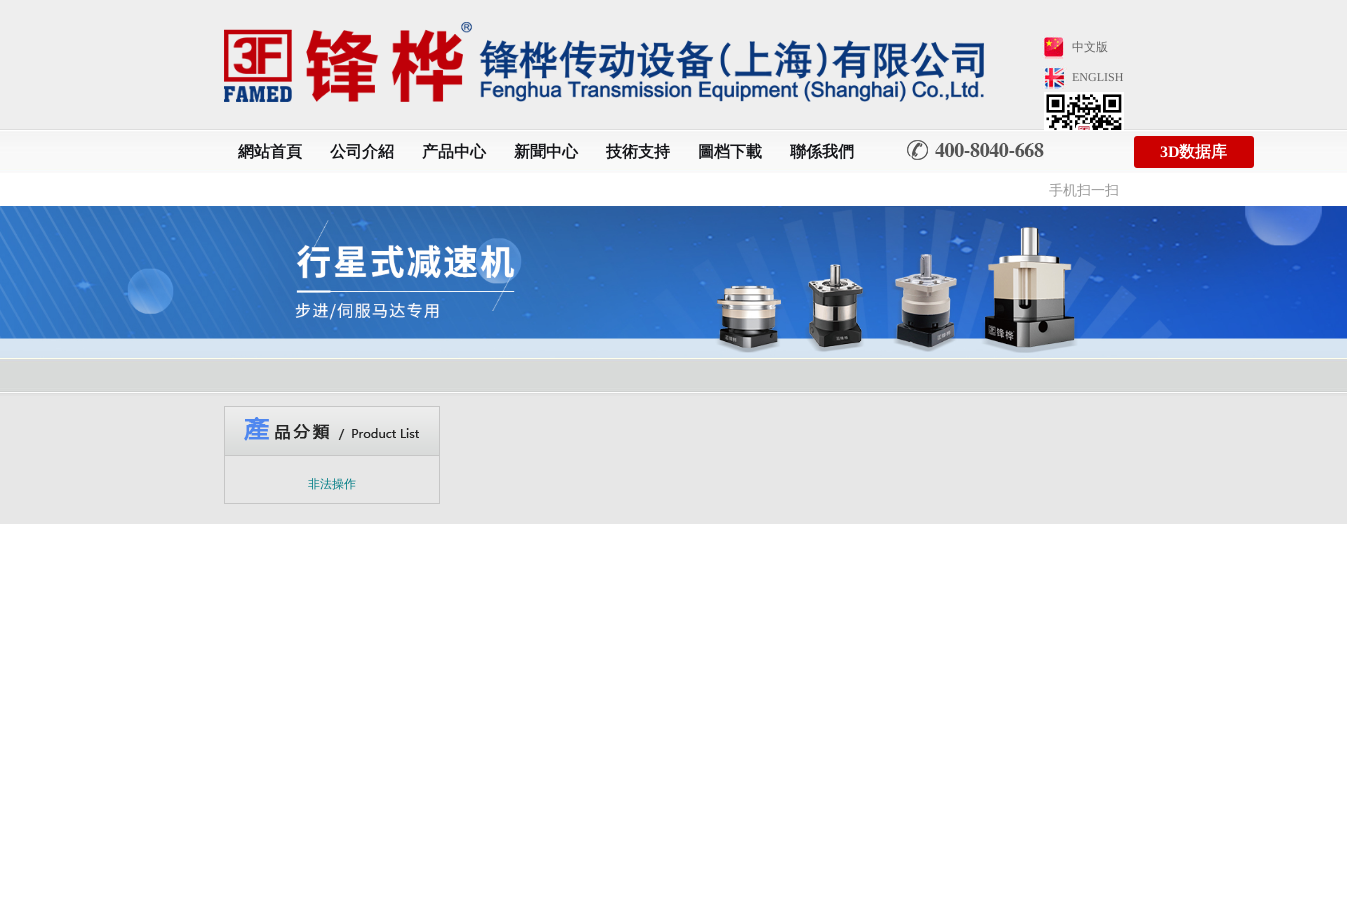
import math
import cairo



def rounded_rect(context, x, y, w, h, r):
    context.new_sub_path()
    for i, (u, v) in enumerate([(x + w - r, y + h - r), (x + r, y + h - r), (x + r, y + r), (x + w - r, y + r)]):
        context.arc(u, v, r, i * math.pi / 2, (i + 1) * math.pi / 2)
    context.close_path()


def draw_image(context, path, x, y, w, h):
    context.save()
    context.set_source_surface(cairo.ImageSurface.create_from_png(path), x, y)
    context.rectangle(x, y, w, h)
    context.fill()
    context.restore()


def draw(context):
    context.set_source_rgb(1, 1, 1)
    context.paint()
    context.set_source_rgb(238 / 255, 238 / 255, 238 / 255)
    context.rectangle(0, 0, 1347, 129)
    context.fill()
    context.set_source_rgb(221 / 255, 221 / 255, 221 / 255)
    context.rectangle(0, 129, 1347, 1)
    context.fill()
    draw_image(context, "images/1.png", 224, 22, 760, 80)
    draw_image(context, "images/2.png", 1042, 36, 22, 23)
    draw_image(context, "images/3.png", 1042, 66, 25, 23)
    draw_image(context, "images/4.png", 1044, 92, 80, 38)
    draw_image(context, "images/5.png", 0, 131, 1347, 42)
    draw_image(context, "images/6.png", 907, 140, 137, 20)
    context.set_source_rgb(204 / 255, 0, 0)
    rounded_rect(context, 1134, 136, 120, 32, 3)
    context.fill()
    draw_image(context, "images/7.png", 0, 206, 1347, 152)
    draw_image(context, "images/8.png", 0, 358, 1347, 38)
    context.set_source_rgb(231 / 255, 231 / 255, 231 / 255)
    context.rectangle(0, 396, 1347, 128)
    context.fill()
    draw_image(context, "images/9.png", 225, 407, 214, 48)
    context.rectangle(224.5, 406.5, 215, 49)
    context.set_source_rgb(198 / 255, 198 / 255, 198 / 255)
    context.set_line_width(1)
    context.stroke()
    draw_image(context, "images/10.png", 244, 417, 175, 24)
    context.rectangle(439, 456, 1, 48)
    context.fill()
    context.rectangle(224, 503, 216, 1)
    context.fill()
    context.rectangle(224, 456, 1, 48)
    context.fill()
    context.select_font_face("WenQuanYi Zen Hei Medium")
    context.set_font_size(12)
    context.set_source_rgb(101 / 255, 101 / 255, 101 / 255)
    context.move_to(1072, 51)
    context.show_text("中文版")
    context.select_font_face("Liberation Serif")
    context.move_to(1072, 81)
    context.show_text("ENGLISH")
    context.select_font_face("WenQuanYi Zen Hei Medium")
    context.set_font_size(14)
    context.set_source_rgb(153 / 255, 153 / 255, 153 / 255)
    context.move_to(1049, 195)
    context.show_text("手机扫一扫")
    context.select_font_face("WenQuanYi Zen Hei", cairo.FontSlant.NORMAL, cairo.FontWeight.BOLD)
    context.set_font_size(16)
    context.set_source_rgb(19 / 255, 20 / 255, 24 / 255)
    context.move_to(238, 157)
    context.show_text("網站首頁")
    context.move_to(330, 157)
    context.show_text("公司介紹")
    context.move_to(422, 157)
    context.show_text("产品中心")
    context.move_to(514, 157)
    context.show_text("新聞中心")
    context.move_to(606, 157)
    context.show_text("技術支持")
    context.move_to(698, 157)
    context.show_text("圖档下載")
    context.move_to(790, 157)
    context.show_text("聯係我們")
    context.select_font_face("Liberation Serif", cairo.FontSlant.NORMAL, cairo.FontWeight.BOLD)
    context.set_source_rgb(1, 1, 1)
    context.move_to(1160, 157)
    context.show_text("3D")
    context.select_font_face("WenQuanYi Zen Hei", cairo.FontSlant.NORMAL, cairo.FontWeight.BOLD)
    context.move_to(1179, 157)
    context.show_text("数据库")
    context.select_font_face("WenQuanYi Zen Hei Medium")
    context.set_font_size(12)
    context.set_source_rgb(0, 124 / 255, 133 / 255)
    context.move_to(308, 488)
    context.show_text("非法操作")


surface = cairo.ImageSurface(cairo.Format.RGB24, 1347, 902)
context = cairo.Context(surface)
options = cairo.FontOptions()
options.set_hint_metrics(cairo.HintMetrics.OFF)
options.set_hint_style(cairo.HintStyle.NONE)
context.set_font_options(options)
context.set_miter_limit(4)
draw(context)
surface.write_to_png("out.png")
